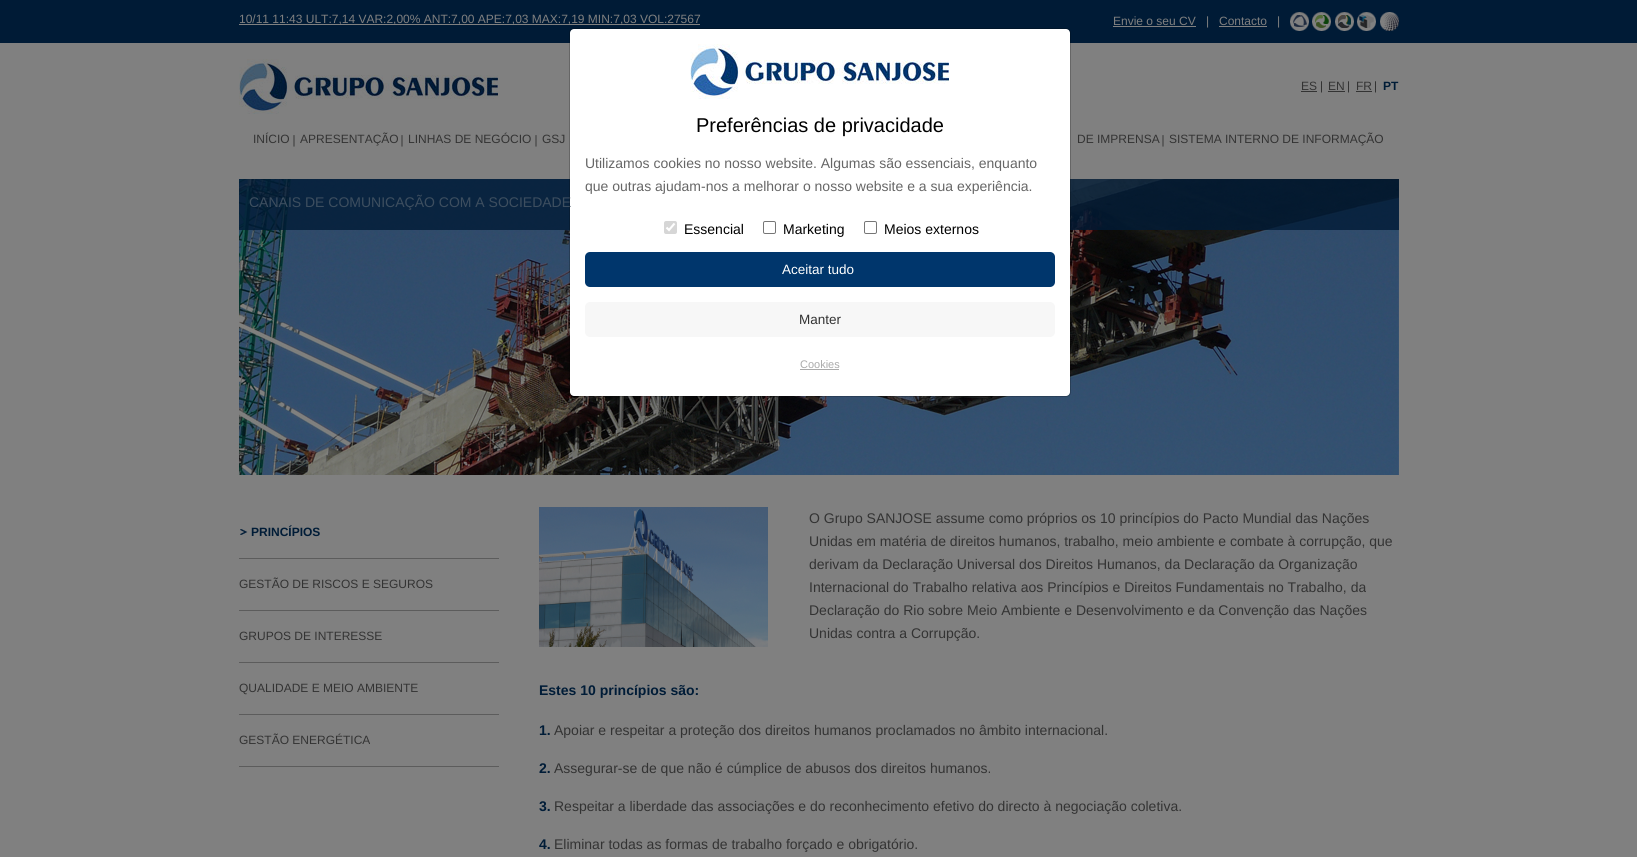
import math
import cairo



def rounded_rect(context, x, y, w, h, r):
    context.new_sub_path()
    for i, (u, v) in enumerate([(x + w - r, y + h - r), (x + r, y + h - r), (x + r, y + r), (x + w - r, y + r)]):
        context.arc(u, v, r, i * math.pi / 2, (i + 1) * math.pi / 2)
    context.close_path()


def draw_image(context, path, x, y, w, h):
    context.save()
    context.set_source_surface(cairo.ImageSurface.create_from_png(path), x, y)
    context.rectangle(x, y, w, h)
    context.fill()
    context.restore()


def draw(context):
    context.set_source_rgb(128 / 255, 128 / 255, 128 / 255)
    context.paint()
    context.set_source_rgb(0, 27 / 255, 54 / 255)
    context.rectangle(0, 0, 1637, 43)
    context.fill()
    context.set_source_rgb(128 / 255, 128 / 255, 128 / 255)
    context.rectangle(239, 24, 461, 1)
    context.fill()
    context.rectangle(1113, 26, 83, 1)
    context.fill()
    context.rectangle(1219, 26, 48, 1)
    context.fill()
    draw_image(context, "images/1.png", 1290, 12, 19, 19)
    draw_image(context, "images/2.png", 1312, 12, 19, 19)
    draw_image(context, "images/3.png", 1335, 12, 19, 19)
    draw_image(context, "images/4.png", 1357, 12, 19, 19)
    draw_image(context, "images/5.png", 1380, 12, 19, 19)
    draw_image(context, "images/6.png", 239, 59, 259, 55)
    context.set_source_rgb(51 / 255, 51 / 255, 51 / 255)
    context.rectangle(1301, 91, 16, 1)
    context.fill()
    draw_image(context, "images/7.png", 1321, 81, 1, 12)
    context.rectangle(1328, 91, 17, 1)
    context.fill()
    draw_image(context, "images/7.png", 1348, 81, 1, 12)
    context.rectangle(1356, 91, 16, 1)
    context.fill()
    draw_image(context, "images/7.png", 1375, 81, 1, 12)
    draw_image(context, "images/8.png", 293, 135, 2, 12)
    draw_image(context, "images/8.png", 401, 135, 2, 12)
    draw_image(context, "images/8.png", 535, 135, 2, 12)
    draw_image(context, "images/8.png", 1162, 135, 2, 12)
    draw_image(context, "images/10.png", 239, 179, 1160, 296)
    context.set_source_rgba(0, 27 / 255, 54 / 255, 0.8)
    context.rectangle(239, 179, 1160, 51)
    context.fill()
    context.set_source_rgb(1, 1, 1)
    rounded_rect(context, 570, 29, 500, 367, 4)
    context.fill()
    context.set_source_rgb(92 / 255, 92 / 255, 92 / 255)
    context.rectangle(239, 558, 260, 1)
    context.fill()
    draw_image(context, "images/11.png", 240, 529, 8, 6)
    context.rectangle(239, 610, 260, 1)
    context.fill()
    context.rectangle(239, 662, 260, 1)
    context.fill()
    context.rectangle(239, 714, 260, 1)
    context.fill()
    context.rectangle(239, 766, 260, 1)
    context.fill()
    draw_image(context, "images/12.png", 539, 507, 229, 140)
    context.select_font_face("Liberation Sans")
    context.set_font_size(12)
    context.set_source_rgb(128 / 255, 128 / 255, 128 / 255)
    context.move_to(239, 23)
    context.show_text("10/11 11:43 ULT:7,14 VAR:2,00% ANT:7,00 APE:7,03 MAX:7,19 MIN:7,03 VOL:27567")
    context.move_to(1113, 25)
    context.show_text("Envie o seu CV")
    context.move_to(1206, 25)
    context.show_text("|")
    context.move_to(1219, 25)
    context.show_text("Contacto")
    context.move_to(1277, 25)
    context.show_text("|")
    context.set_source_rgb(51 / 255, 51 / 255, 51 / 255)
    context.move_to(1301, 90)
    context.show_text("ES")
    context.move_to(1328, 90)
    context.show_text("EN")
    context.move_to(1356, 90)
    context.show_text("FR")
    context.select_font_face("Liberation Sans", cairo.FontSlant.NORMAL, cairo.FontWeight.BOLD)
    context.set_source_rgb(0, 28 / 255, 55 / 255)
    context.move_to(1383, 90)
    context.show_text("PT")
    context.select_font_face("Liberation Sans")
    context.set_source_rgb(51 / 255, 51 / 255, 51 / 255)
    context.move_to(253, 143)
    context.show_text("INÍCIO")
    context.move_to(300, 143)
    context.show_text("APRESENTAÇÃO")
    context.move_to(408, 143)
    context.show_text("LINHAS DE NEGÓCIO")
    context.move_to(542, 143)
    context.show_text("GSJ")
    context.move_to(1077, 143)
    context.show_text("DE IMPRENSA")
    context.move_to(1169, 143)
    context.show_text("SISTEMA INTERNO DE INFORMAÇÃO")
    context.set_font_size(14)
    context.set_source_rgb(61 / 255, 78 / 255, 95 / 255)
    context.move_to(249, 207)
    context.show_text("CANAIS DE COMUNICAÇÃO COM A SOCIEDADE")
    rounded_rect(context, 569.5, 28.5, 501, 368, 4.5)
    context.set_source_rgba(0, 0, 0, 0.2)
    context.set_line_width(1)
    context.stroke()
    context.set_source_rgb(247 / 255, 247 / 255, 247 / 255)
    rounded_rect(context, 585, 302, 470, 35, 5)
    context.fill()
    context.set_font_size(13.5)
    context.set_source_rgb(51 / 255, 51 / 255, 51 / 255)
    context.move_to(799, 324)
    context.show_text("Manter")
    context.set_source_rgb(0, 54 / 255, 108 / 255)
    rounded_rect(context, 585, 252, 470, 35, 5)
    context.fill()
    context.set_source_rgb(1, 1, 1)
    context.move_to(782, 274)
    context.show_text("Aceitar tudo")
    context.set_font_size(14)
    context.set_source_rgb(0, 0, 0)
    context.move_to(884, 234)
    context.show_text("Meios externos")
    rounded_rect(context, 864.5, 221.5, 12, 12, 1.5)
    context.set_source_rgb(118 / 255, 118 / 255, 118 / 255)
    context.stroke()
    context.set_source_rgb(0, 0, 0)
    context.move_to(783, 234)
    context.show_text("Marketing")
    rounded_rect(context, 763.5, 221.5, 12, 12, 1.5)
    context.set_source_rgb(118 / 255, 118 / 255, 118 / 255)
    context.stroke()
    context.set_source_rgb(0, 0, 0)
    context.move_to(684, 234)
    context.show_text("Essencial")
    context.set_source_rgb(214 / 255, 214 / 255, 214 / 255)
    rounded_rect(context, 664, 221, 13, 13, 2)
    context.fill()
    context.new_path()
    context.move_to(666.5, 227.5)
    context.line_to(669, 230)
    context.line_to(674.5, 223.5)
    context.set_source_rgb(1, 1, 1)
    context.set_line_width(2.1)
    context.stroke()
    context.set_font_size(11)
    context.set_source_rgb(170 / 255, 170 / 255, 170 / 255)
    context.move_to(800, 368)
    context.show_text("Cookies")
    context.rectangle(800, 369, 39, 1)
    context.fill()
    context.set_font_size(14)
    context.set_source_rgb(102 / 255, 102 / 255, 102 / 255)
    context.move_to(585, 191)
    context.show_text("que outras ajudam-nos a melhorar o nosso website e a sua experiência.")
    context.move_to(585, 168)
    context.show_text("Utilizamos cookies no nosso website. Algumas são essenciais, enquanto")
    context.set_font_size(20)
    context.set_source_rgb(0, 0, 0)
    context.move_to(696, 132)
    context.show_text("Preferências de privacidade")
    draw_image(context, "images/9.png", 690, 44, 259, 55)
    context.select_font_face("Liberation Sans", cairo.FontSlant.NORMAL, cairo.FontWeight.BOLD)
    context.set_font_size(12)
    context.set_source_rgb(0, 28 / 255, 55 / 255)
    context.move_to(251, 536)
    context.show_text("PRINCÍPIOS")
    context.select_font_face("Liberation Sans")
    context.set_source_rgb(51 / 255, 51 / 255, 51 / 255)
    context.move_to(239, 588)
    context.show_text("GESTÃO DE RISCOS E SEGUROS")
    context.move_to(239, 640)
    context.show_text("GRUPOS DE INTERESSE")
    context.move_to(239, 692)
    context.show_text("QUALIDADE E MEIO AMBIENTE")
    context.move_to(239, 744)
    context.show_text("GESTÃO ENERGÉTICA")
    context.set_font_size(14)
    context.move_to(809, 523)
    context.show_text("O Grupo SANJOSE assume como próprios os 10 princípios do Pacto Mundial das Nações")
    context.move_to(809, 546)
    context.show_text("Unidas em matéria de direitos humanos, trabalho, meio ambiente e combate à corrupção, que")
    context.move_to(809, 569)
    context.show_text("derivam da Declaração Universal dos Direitos Humanos, da Declaração da Organização")
    context.move_to(809, 592)
    context.show_text("Internacional do Trabalho relativa aos Princípios e Direitos Fundamentais no Trabalho, da")
    context.move_to(809, 615)
    context.show_text("Declaração do Rio sobre Meio Ambiente e Desenvolvimento e da Convenção das Nações")
    context.move_to(809, 638)
    context.show_text("Unidas contra a Corrupção.")
    context.select_font_face("Liberation Sans", cairo.FontSlant.NORMAL, cairo.FontWeight.BOLD)
    context.set_source_rgb(0, 28 / 255, 55 / 255)
    context.move_to(539, 695)
    context.show_text("Estes 10 princípios são:")
    context.move_to(539, 735)
    context.show_text("1.")
    context.select_font_face("Liberation Sans")
    context.set_source_rgb(51 / 255, 51 / 255, 51 / 255)
    context.move_to(554, 735)
    context.show_text("Apoiar e respeitar a proteção dos direitos humanos proclamados no âmbito internacional.")
    context.select_font_face("Liberation Sans", cairo.FontSlant.NORMAL, cairo.FontWeight.BOLD)
    context.set_source_rgb(0, 28 / 255, 55 / 255)
    context.move_to(539, 773)
    context.show_text("2.")
    context.select_font_face("Liberation Sans")
    context.set_source_rgb(51 / 255, 51 / 255, 51 / 255)
    context.move_to(554, 773)
    context.show_text("Assegurar-se de que não é cúmplice de abusos dos direitos humanos.")
    context.select_font_face("Liberation Sans", cairo.FontSlant.NORMAL, cairo.FontWeight.BOLD)
    context.set_source_rgb(0, 28 / 255, 55 / 255)
    context.move_to(539, 811)
    context.show_text("3.")
    context.select_font_face("Liberation Sans")
    context.set_source_rgb(51 / 255, 51 / 255, 51 / 255)
    context.move_to(554, 811)
    context.show_text("Respeitar a liberdade das associações e do reconhecimento efetivo do directo à negociação coletiva.")
    context.select_font_face("Liberation Sans", cairo.FontSlant.NORMAL, cairo.FontWeight.BOLD)
    context.set_source_rgb(0, 28 / 255, 55 / 255)
    context.move_to(539, 849)
    context.show_text("4.")
    context.select_font_face("Liberation Sans")
    context.set_source_rgb(51 / 255, 51 / 255, 51 / 255)
    context.move_to(554, 849)
    context.show_text("Eliminar todas as formas de trabalho forçado e obrigatório.")


surface = cairo.ImageSurface(cairo.Format.RGB24, 1637, 857)
context = cairo.Context(surface)
options = cairo.FontOptions()
options.set_hint_metrics(cairo.HintMetrics.OFF)
options.set_hint_style(cairo.HintStyle.NONE)
context.set_font_options(options)
context.set_miter_limit(4)
draw(context)
surface.write_to_png("out.png")
